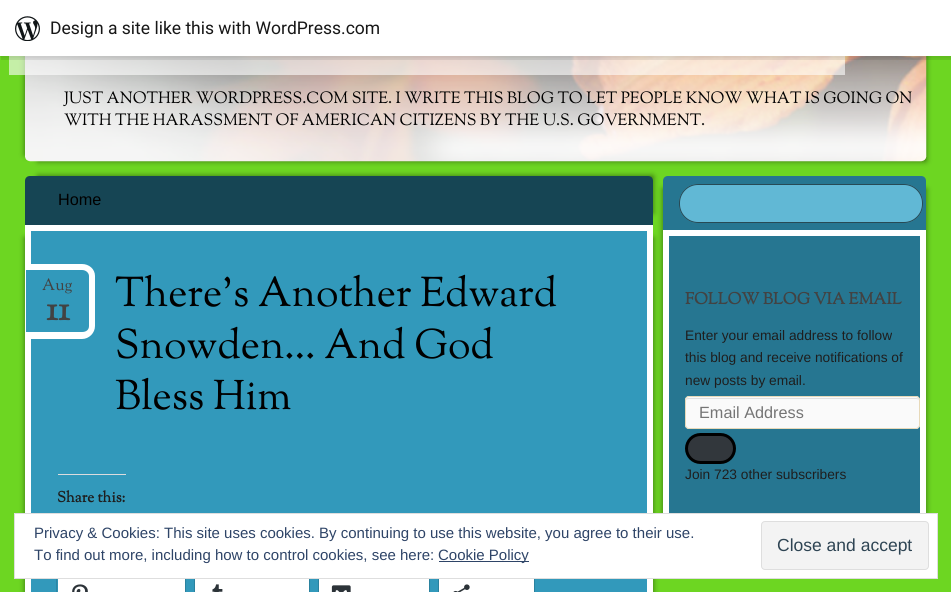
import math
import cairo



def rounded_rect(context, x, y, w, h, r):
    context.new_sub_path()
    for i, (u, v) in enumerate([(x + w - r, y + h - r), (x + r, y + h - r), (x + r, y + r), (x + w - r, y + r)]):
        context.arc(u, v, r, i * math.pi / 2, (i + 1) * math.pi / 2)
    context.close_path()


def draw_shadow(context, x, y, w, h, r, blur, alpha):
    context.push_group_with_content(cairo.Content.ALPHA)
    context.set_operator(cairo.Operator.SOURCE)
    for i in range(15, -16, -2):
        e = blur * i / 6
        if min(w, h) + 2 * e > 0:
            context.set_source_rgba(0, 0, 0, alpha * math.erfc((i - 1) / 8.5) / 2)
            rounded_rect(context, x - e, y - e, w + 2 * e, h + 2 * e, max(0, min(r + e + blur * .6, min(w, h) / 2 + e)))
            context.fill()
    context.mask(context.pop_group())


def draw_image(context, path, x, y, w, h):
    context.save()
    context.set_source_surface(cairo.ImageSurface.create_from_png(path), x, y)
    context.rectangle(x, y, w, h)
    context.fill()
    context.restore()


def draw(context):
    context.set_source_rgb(109 / 255, 214 / 255, 34 / 255)
    context.paint()
    context.set_source_rgb(0, 0, 0)
    draw_shadow(context, 25, -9, 889, 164, 0, 3, 0.5)
    draw_shadow(context, 38, -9, 888, 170, 0, 3, 0.5)
    draw_image(context, "images/2.png", 25, 56, 902, 106)
    context.set_source_rgba(1, 1, 1, 0.6)
    context.rectangle(9, 56, 836, 19)
    context.fill()
    context.set_source_rgb(0, 0, 0)
    draw_shadow(context, 0, 1, 951, 57, 0, 1, 0.05)
    context.set_source_rgba(0, 0, 0, 0.08)
    context.new_path()
    context.move_to(1, 56)
    context.line_to(1, 60)
    context.line_to(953, 60)
    context.line_to(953, 4)
    context.line_to(951, 4)
    context.line_to(951, 56)
    context.close_path()
    context.fill()
    context.set_source_rgb(1, 1, 1)
    context.rectangle(0, 0, 951, 56)
    context.fill()
    draw_image(context, "images/1.png", 15, 16, 25, 25)
    context.set_source_rgb(0, 0, 0)
    draw_shadow(context, 38, 176, 615, 37, 0, 3, 0.5)
    context.set_source_rgb(22 / 255, 69 / 255, 84 / 255)
    context.new_path()
    context.move_to(30, 176)
    context.line_to(648, 176)
    context.curve_to(651, 176, 653, 178, 653, 181)
    context.line_to(653, 225)
    context.line_to(25, 225)
    context.line_to(25, 181)
    context.curve_to(25, 178, 27, 176, 30, 176)
    context.close_path()
    context.fill()
    context.set_source_rgb(0, 0, 0)
    draw_shadow(context, 25, 238, 615, 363, 0, 3, 0.5)
    draw_shadow(context, 38, 238, 615, 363, 0, 3, 0.5)
    context.set_source_rgb(50 / 255, 153 / 255, 187 / 255)
    context.rectangle(28, 228, 622, 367)
    context.fill_preserve()
    context.set_source_rgb(1, 1, 1)
    context.set_line_width(6)
    context.stroke()
    context.set_source_rgb(50 / 255, 153 / 255, 187 / 255)
    context.new_path()
    context.move_to(26, 270)
    context.line_to(83, 270)
    context.curve_to(86.5, 270, 89, 272.5, 89, 276)
    context.line_to(89, 327)
    context.curve_to(89, 330.5, 86.5, 333, 83, 333)
    context.line_to(26, 333)
    context.close_path()
    context.fill()
    context.set_source_rgb(1, 1, 1)
    context.set_fill_rule(cairo.FillRule.EVEN_ODD)
    context.new_path()
    context.move_to(26, 264)
    context.line_to(82, 264)
    context.curve_to(89, 264, 95, 269, 95, 276)
    context.line_to(95, 326)
    context.curve_to(95, 333, 89, 339, 82, 339)
    context.line_to(26, 339)
    context.close_path()
    context.move_to(26, 270)
    context.line_to(82, 270)
    context.curve_to(86, 270, 89, 273, 89, 276)
    context.line_to(89, 326)
    context.curve_to(89, 330, 86, 332, 82, 332)
    context.line_to(26, 332)
    context.close_path()
    context.fill()
    context.set_source_rgb(220 / 255, 220 / 255, 222 / 255)
    context.rectangle(58, 474, 68, 1)
    context.fill()
    context.rectangle(56.5, 574.5, 129, 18)
    context.set_source_rgb(44 / 255, 135 / 255, 165 / 255)
    context.set_line_width(1)
    context.stroke()
    context.set_source_rgb(0, 0, 0)
    draw_shadow(context, 58, 576, 127, 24, 5, 1, 0.12)
    context.set_source_rgb(1, 1, 1)
    context.rectangle(58, 579, 127, 13)
    context.fill()
    draw_image(context, "images/3.png", 72, 584, 16, 8)
    context.rectangle(194.5, 574.5, 115, 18)
    context.set_source_rgb(44 / 255, 135 / 255, 165 / 255)
    context.stroke()
    context.set_source_rgb(0, 0, 0)
    draw_shadow(context, 195, 576, 114, 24, 5, 1, 0.12)
    context.set_source_rgb(1, 1, 1)
    context.rectangle(195, 579, 114, 13)
    context.fill()
    draw_image(context, "images/4.png", 212, 584, 11, 8)
    context.rectangle(318.5, 574.5, 111, 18)
    context.set_source_rgb(44 / 255, 135 / 255, 165 / 255)
    context.stroke()
    context.set_source_rgb(0, 0, 0)
    draw_shadow(context, 319, 576, 110, 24, 5, 1, 0.12)
    context.set_source_rgb(1, 1, 1)
    context.rectangle(319, 579, 110, 13)
    context.fill()
    draw_image(context, "images/5.png", 331, 585, 20, 7)
    context.rectangle(438.5, 574.5, 96, 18)
    context.set_source_rgb(44 / 255, 135 / 255, 165 / 255)
    context.stroke()
    context.set_source_rgb(0, 0, 0)
    draw_shadow(context, 439, 576, 95, 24, 5, 1, 0.12)
    context.set_source_rgb(1, 1, 1)
    context.rectangle(439, 579, 95, 13)
    context.fill()
    draw_image(context, "images/6.png", 453, 584, 17, 8)
    context.set_source_rgb(0, 0, 0)
    draw_shadow(context, 663, 189, 251, 371, 0, 3, 0.5)
    draw_shadow(context, 675, 189, 251, 371, 0, 3, 0.5)
    context.set_source_rgb(38 / 255, 118 / 255, 145 / 255)
    context.new_path()
    context.move_to(668, 176)
    context.line_to(921, 176)
    context.curve_to(924, 176, 926, 178, 926, 181)
    context.line_to(926, 230)
    context.line_to(663, 230)
    context.line_to(663, 181)
    context.curve_to(663, 178, 665, 176, 668, 176)
    context.close_path()
    context.fill()
    context.set_source_rgb(97 / 255, 184 / 255, 213 / 255)
    rounded_rect(context, 679, 184, 244, 39, 19)
    context.fill()
    rounded_rect(context, 679.5, 184.5, 243, 38, 18.5)
    context.set_source_rgba(0, 0, 0, 0.6)
    context.stroke()
    context.set_source_rgb(38 / 255, 118 / 255, 145 / 255)
    context.rectangle(669, 236, 251, 277)
    context.fill()
    context.rectangle(666, 233, 257, 324)
    context.set_source_rgb(1, 1, 1)
    context.set_line_width(6)
    context.stroke()
    context.set_source_rgb(250 / 255, 250 / 255, 250 / 255)
    rounded_rect(context, 685, 396, 235, 33, 4)
    context.fill()
    context.set_source_rgb(225 / 255, 225 / 255, 225 / 255)
    context.set_fill_rule(cairo.FillRule.WINDING)
    context.new_path()
    context.move_to(689, 399)
    context.line_to(916, 399)
    context.curve_to(918, 399, 919, 400, 919, 401)
    context.curve_to(919, 399, 918, 398, 916, 398)
    context.line_to(688, 398)
    context.curve_to(687, 398, 686, 399, 686, 401)
    context.curve_to(686, 400, 687, 399, 689, 399)
    context.close_path()
    context.fill()
    rounded_rect(context, 685.5, 396.5, 234, 32, 3.5)
    context.set_source_rgb(231 / 255, 217 / 255, 185 / 255)
    context.set_line_width(1)
    context.stroke()
    context.set_source_rgb(50 / 255, 55 / 255, 60 / 255)
    rounded_rect(context, 686.5, 434.5, 48, 28, 14)
    context.fill_preserve()
    context.set_source_rgb(0, 0, 0)
    context.set_line_width(3)
    context.stroke()
    context.set_source_rgb(1, 1, 1)
    context.rectangle(14.5, 513.5, 923, 65)
    context.fill_preserve()
    context.set_source_rgb(222 / 255, 222 / 255, 222 / 255)
    context.set_line_width(1)
    context.stroke()
    context.set_source_rgb(243 / 255, 243 / 255, 243 / 255)
    rounded_rect(context, 761.5, 521.5, 167, 48, 3.5)
    context.fill_preserve()
    context.set_source_rgb(222 / 255, 222 / 255, 222 / 255)
    context.stroke()
    context.set_source_rgb(46 / 255, 68 / 255, 103 / 255)
    context.rectangle(439, 561, 90, 1)
    context.fill()
    context.select_font_face("Roboto")
    context.set_font_size(17.5)
    context.set_source_rgb(23 / 255, 23 / 255, 23 / 255)
    context.move_to(50, 34)
    context.show_text("Design a site like this with WordPress.com")
    context.select_font_face("Sorts Mill Goudy")
    context.set_font_size(16.25)
    context.set_source_rgb(0, 0, 0)
    context.move_to(64, 103)
    context.show_text("JUST ANOTHER WORDPRESS.COM SITE. I WRITE THIS BLOG TO LET PEOPLE KNOW WHAT IS GOING ON")
    context.move_to(64, 125)
    context.show_text("WITH THE HARASSMENT OF AMERICAN CITIZENS BY THE U.S. GOVERNMENT.")
    context.select_font_face("Liberation Sans")
    context.move_to(58, 205)
    context.show_text("Home")
    context.select_font_face("Sorts Mill Goudy")
    context.set_source_rgb(66 / 255, 66 / 255, 66 / 255)
    context.move_to(42, 290)
    context.show_text("Aug")
    context.select_font_face("Sorts Mill Goudy", cairo.FontSlant.NORMAL, cairo.FontWeight.BOLD)
    context.set_font_size(35)
    context.move_to(46, 320)
    context.show_text("11")
    context.select_font_face("Sorts Mill Goudy")
    context.set_font_size(41.25)
    context.set_source_rgb(0, 0, 0)
    context.move_to(115, 306)
    context.show_text("There’s Another Edward")
    context.move_to(115, 358)
    context.show_text("Snowden… And God")
    context.move_to(115, 409)
    context.show_text("Bless Him")
    context.select_font_face("Sorts Mill Goudy", cairo.FontSlant.NORMAL, cairo.FontWeight.BOLD)
    context.set_font_size(15)
    context.set_source_rgb(30 / 255, 30 / 255, 30 / 255)
    context.move_to(57, 502)
    context.show_text("Share this:")
    context.set_font_size(16.25)
    context.set_source_rgb(66 / 255, 66 / 255, 66 / 255)
    context.move_to(685, 304)
    context.show_text("FOLLOW BLOG VIA EMAIL")
    context.select_font_face("Liberation Sans")
    context.set_font_size(13.75)
    context.set_source_rgb(30 / 255, 30 / 255, 30 / 255)
    context.move_to(685, 340)
    context.show_text("Enter your email address to follow")
    context.move_to(685, 362)
    context.show_text("this blog and receive notifications of")
    context.move_to(685, 385)
    context.show_text("new posts by email.")
    context.set_font_size(16.25)
    context.set_source_rgb(117 / 255, 117 / 255, 117 / 255)
    context.move_to(699, 418)
    context.show_text("Email Address")
    context.set_font_size(13.75)
    context.set_source_rgb(30 / 255, 30 / 255, 30 / 255)
    context.move_to(685, 479)
    context.show_text("Join 723 other subscribers")
    context.set_font_size(15)
    context.set_source_rgb(46 / 255, 68 / 255, 103 / 255)
    context.move_to(34, 538)
    context.show_text("Privacy & Cookies: This site uses cookies. By continuing to use this website, you agree to their use.")
    context.set_font_size(17.5)
    context.set_source_rgb(46 / 255, 68 / 255, 83 / 255)
    context.move_to(777, 551)
    context.show_text("Close and accept")
    context.set_font_size(15)
    context.set_source_rgb(46 / 255, 68 / 255, 103 / 255)
    context.move_to(34, 560)
    context.show_text("To find out more, including how to control cookies, see here:")
    context.move_to(438, 560)
    context.show_text("Cookie Policy")


surface = cairo.ImageSurface(cairo.Format.RGB24, 951, 592)
context = cairo.Context(surface)
options = cairo.FontOptions()
options.set_hint_metrics(cairo.HintMetrics.OFF)
options.set_hint_style(cairo.HintStyle.NONE)
context.set_font_options(options)
context.set_miter_limit(4)
draw(context)
surface.write_to_png("out.png")
